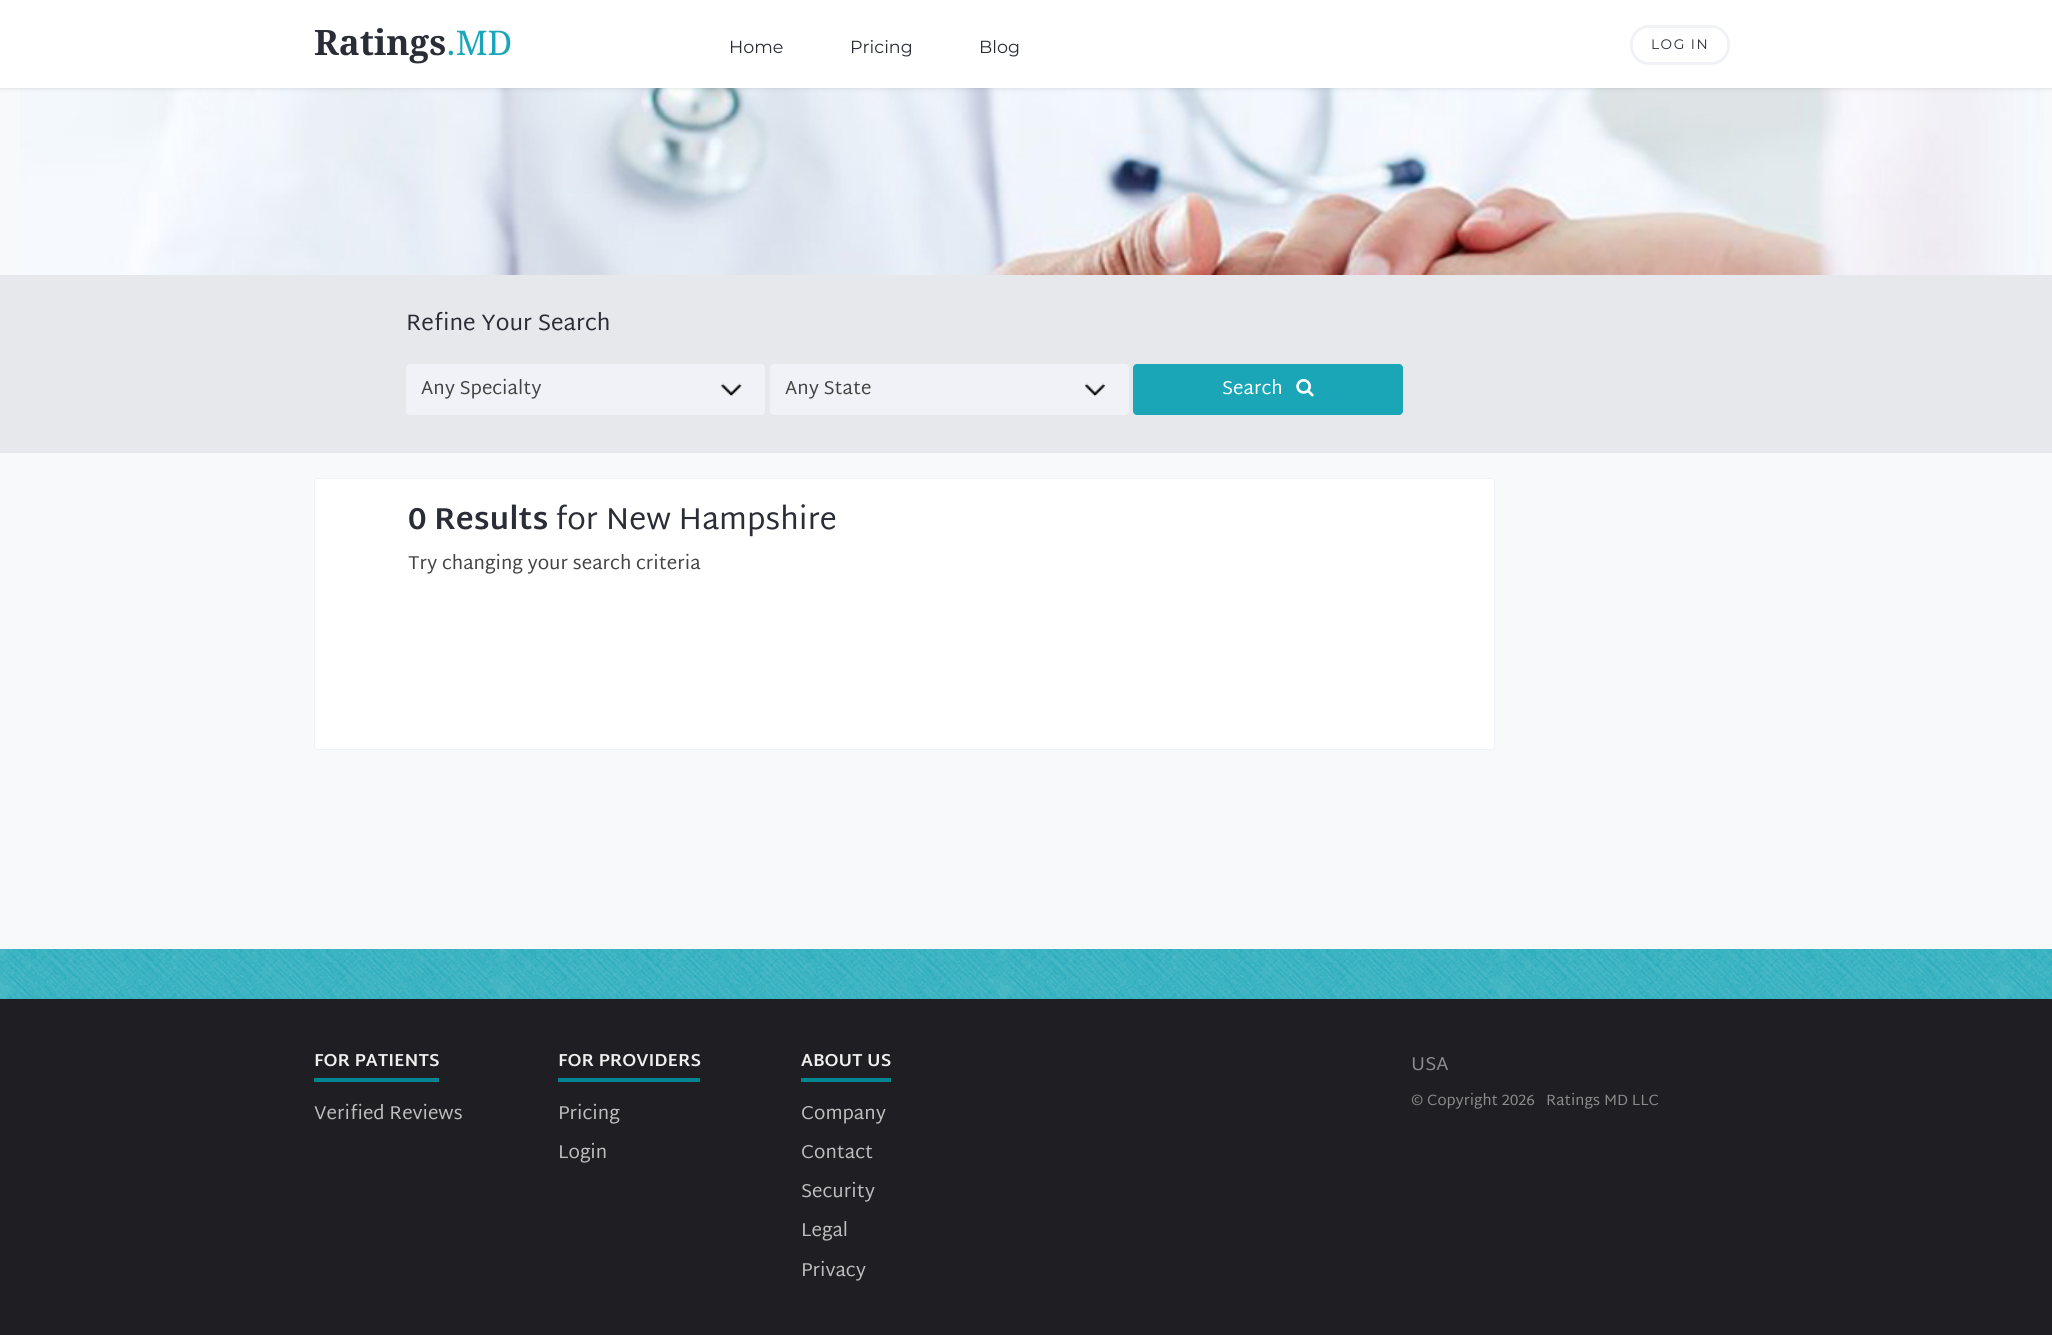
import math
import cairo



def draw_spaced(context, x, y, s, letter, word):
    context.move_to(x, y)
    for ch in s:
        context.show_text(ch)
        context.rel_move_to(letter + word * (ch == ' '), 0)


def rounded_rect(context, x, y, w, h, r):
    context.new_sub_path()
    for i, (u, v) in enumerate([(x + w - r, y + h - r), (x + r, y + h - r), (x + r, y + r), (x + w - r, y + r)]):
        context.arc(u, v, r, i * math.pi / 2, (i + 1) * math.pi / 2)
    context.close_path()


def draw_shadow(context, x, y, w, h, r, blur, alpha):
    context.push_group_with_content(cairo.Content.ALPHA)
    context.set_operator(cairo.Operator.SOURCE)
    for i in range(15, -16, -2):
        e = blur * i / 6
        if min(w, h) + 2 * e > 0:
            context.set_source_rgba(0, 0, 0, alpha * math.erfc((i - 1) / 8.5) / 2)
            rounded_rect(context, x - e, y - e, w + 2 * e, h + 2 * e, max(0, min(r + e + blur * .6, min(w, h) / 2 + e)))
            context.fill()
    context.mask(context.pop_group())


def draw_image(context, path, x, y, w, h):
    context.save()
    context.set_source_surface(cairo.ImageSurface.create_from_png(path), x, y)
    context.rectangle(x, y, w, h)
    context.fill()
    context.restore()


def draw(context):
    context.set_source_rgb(248 / 255, 249 / 255, 251 / 255)
    context.paint()
    draw_image(context, "images/1.png", 20, 88, 2024, 187)
    context.set_source_rgb(0, 0, 0)
    draw_shadow(context, 0, 1, 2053, 88, 0, 2, 0.1)
    context.set_source_rgb(1, 1, 1)
    context.rectangle(0, 0, 2052, 88)
    context.fill()
    rounded_rect(context, 1631.5, 26.5, 97, 37, 17.5)
    context.set_source_rgb(241 / 255, 242 / 255, 247 / 255)
    context.set_line_width(3)
    context.stroke()
    context.set_source_rgb(231 / 255, 232 / 255, 236 / 255)
    context.rectangle(0, 275, 2052, 178)
    context.fill()
    context.set_source_rgb(240 / 255, 242 / 255, 247 / 255)
    rounded_rect(context, 406, 364, 359, 51, 4)
    context.fill()
    draw_image(context, "images/2.png", 721, 383, 21, 14)
    rounded_rect(context, 770, 364, 359, 51, 4)
    context.fill()
    draw_image(context, "images/3.png", 1085, 383, 20, 14)
    context.set_source_rgb(26 / 255, 166 / 255, 183 / 255)
    rounded_rect(context, 1133, 364, 270, 51, 4)
    context.fill()
    draw_image(context, "images/4.png", 1296, 379, 18, 18)
    context.set_source_rgb(1, 1, 1)
    rounded_rect(context, 314.5, 478.5, 1180, 271, 3.5)
    context.fill_preserve()
    context.set_source_rgb(240 / 255, 242 / 255, 247 / 255)
    context.set_line_width(1)
    context.stroke()
    context.set_source_rgb(30 / 255, 30 / 255, 35 / 255)
    context.rectangle(0, 999, 2052, 336)
    context.fill()
    context.set_source_rgb(26 / 255, 166 / 255, 183 / 255)
    context.rectangle(0, 949, 2052, 50)
    context.fill()
    draw_image(context, "images/5.png", 0, 949, 2052, 50)
    context.set_source_rgb(0, 133 / 255, 147 / 255)
    context.rectangle(314, 1078, 125, 4)
    context.fill()
    context.rectangle(558, 1078, 142, 4)
    context.fill()
    context.rectangle(801, 1078, 90, 4)
    context.fill()
    context.select_font_face("Droid Serif", cairo.FontSlant.NORMAL, cairo.FontWeight.BOLD)
    context.set_font_size(35)
    context.set_source_rgb(42 / 255, 44 / 255, 54 / 255)
    context.move_to(314, 55)
    context.show_text("Ratings")
    context.select_font_face("Droid Serif")
    context.set_font_size(34)
    context.set_source_rgb(26 / 255, 166 / 255, 183 / 255)
    context.move_to(446, 55)
    context.show_text(".MD")
    context.select_font_face("Montserrat")
    context.set_font_size(17.5)
    context.set_source_rgb(42 / 255, 44 / 255, 54 / 255)
    context.move_to(729, 53)
    context.show_text("Home")
    context.move_to(850, 53)
    context.show_text("Pricing")
    context.move_to(979, 53)
    context.show_text("Blog")
    context.set_font_size(13.75)
    draw_spaced(context, 1651, 49, "LOG IN", 1.5, 0)
    context.select_font_face("Martel Sans")
    context.set_font_size(22.5)
    context.move_to(406, 330)
    context.show_text("Refine Your Search")
    context.set_font_size(18.75)
    context.set_source_rgb(68 / 255, 68 / 255, 68 / 255)
    context.move_to(421, 394)
    context.show_text("Any Specialty")
    context.move_to(785, 394)
    context.show_text("Any State")
    context.set_source_rgb(1, 1, 1)
    context.move_to(1222, 394)
    context.show_text("Search")
    context.select_font_face("Martel Sans", cairo.FontSlant.NORMAL, cairo.FontWeight.BOLD)
    context.set_font_size(30.5)
    context.set_source_rgb(42 / 255, 44 / 255, 54 / 255)
    context.move_to(408, 529)
    context.show_text("0 Results")
    context.select_font_face("Martel Sans")
    context.move_to(555, 529)
    context.show_text("for New Hampshire")
    context.set_font_size(18.75)
    context.set_source_rgb(68 / 255, 68 / 255, 68 / 255)
    context.move_to(408, 569)
    context.show_text("Try changing your search criteria")
    context.select_font_face("Martel Sans", cairo.FontSlant.NORMAL, cairo.FontWeight.BOLD)
    context.set_font_size(17.5)
    context.set_source_rgb(239 / 255, 239 / 255, 239 / 255)
    context.move_to(314, 1066)
    context.show_text("FOR PATIENTS")
    context.select_font_face("Martel Sans")
    context.set_font_size(18.75)
    context.set_source_rgb(190 / 255, 190 / 255, 190 / 255)
    context.move_to(314, 1119)
    context.show_text("Verified Reviews")
    context.select_font_face("Martel Sans", cairo.FontSlant.NORMAL, cairo.FontWeight.BOLD)
    context.set_font_size(17.5)
    context.set_source_rgb(239 / 255, 239 / 255, 239 / 255)
    context.move_to(558, 1066)
    context.show_text("FOR PROVIDERS")
    context.select_font_face("Martel Sans")
    context.set_font_size(18.75)
    context.set_source_rgb(190 / 255, 190 / 255, 190 / 255)
    context.move_to(558, 1119)
    context.show_text("Pricing")
    context.move_to(558, 1158)
    context.show_text("Login")
    context.select_font_face("Martel Sans", cairo.FontSlant.NORMAL, cairo.FontWeight.BOLD)
    context.set_font_size(17.5)
    context.set_source_rgb(239 / 255, 239 / 255, 239 / 255)
    context.move_to(801, 1066)
    context.show_text("ABOUT US")
    context.select_font_face("Martel Sans")
    context.set_font_size(18.75)
    context.set_source_rgb(190 / 255, 190 / 255, 190 / 255)
    context.move_to(801, 1119)
    context.show_text("Company")
    context.move_to(801, 1158)
    context.show_text("Contact")
    context.move_to(801, 1197)
    context.show_text("Security")
    context.move_to(801, 1236)
    context.show_text("Legal")
    context.move_to(801, 1276)
    context.show_text("Privacy")
    context.set_source_rgb(139 / 255, 139 / 255, 139 / 255)
    context.move_to(1411, 1070)
    context.show_text("USA")
    context.set_font_size(15)
    context.move_to(1411, 1105)
    context.show_text("© Copyright 2026")
    context.move_to(1546, 1105)
    context.show_text("Ratings MD LLC")


surface = cairo.ImageSurface(cairo.Format.RGB24, 2052, 1335)
context = cairo.Context(surface)
options = cairo.FontOptions()
options.set_hint_metrics(cairo.HintMetrics.OFF)
options.set_hint_style(cairo.HintStyle.NONE)
context.set_font_options(options)
context.set_miter_limit(4)
draw(context)
surface.write_to_png("out.png")
